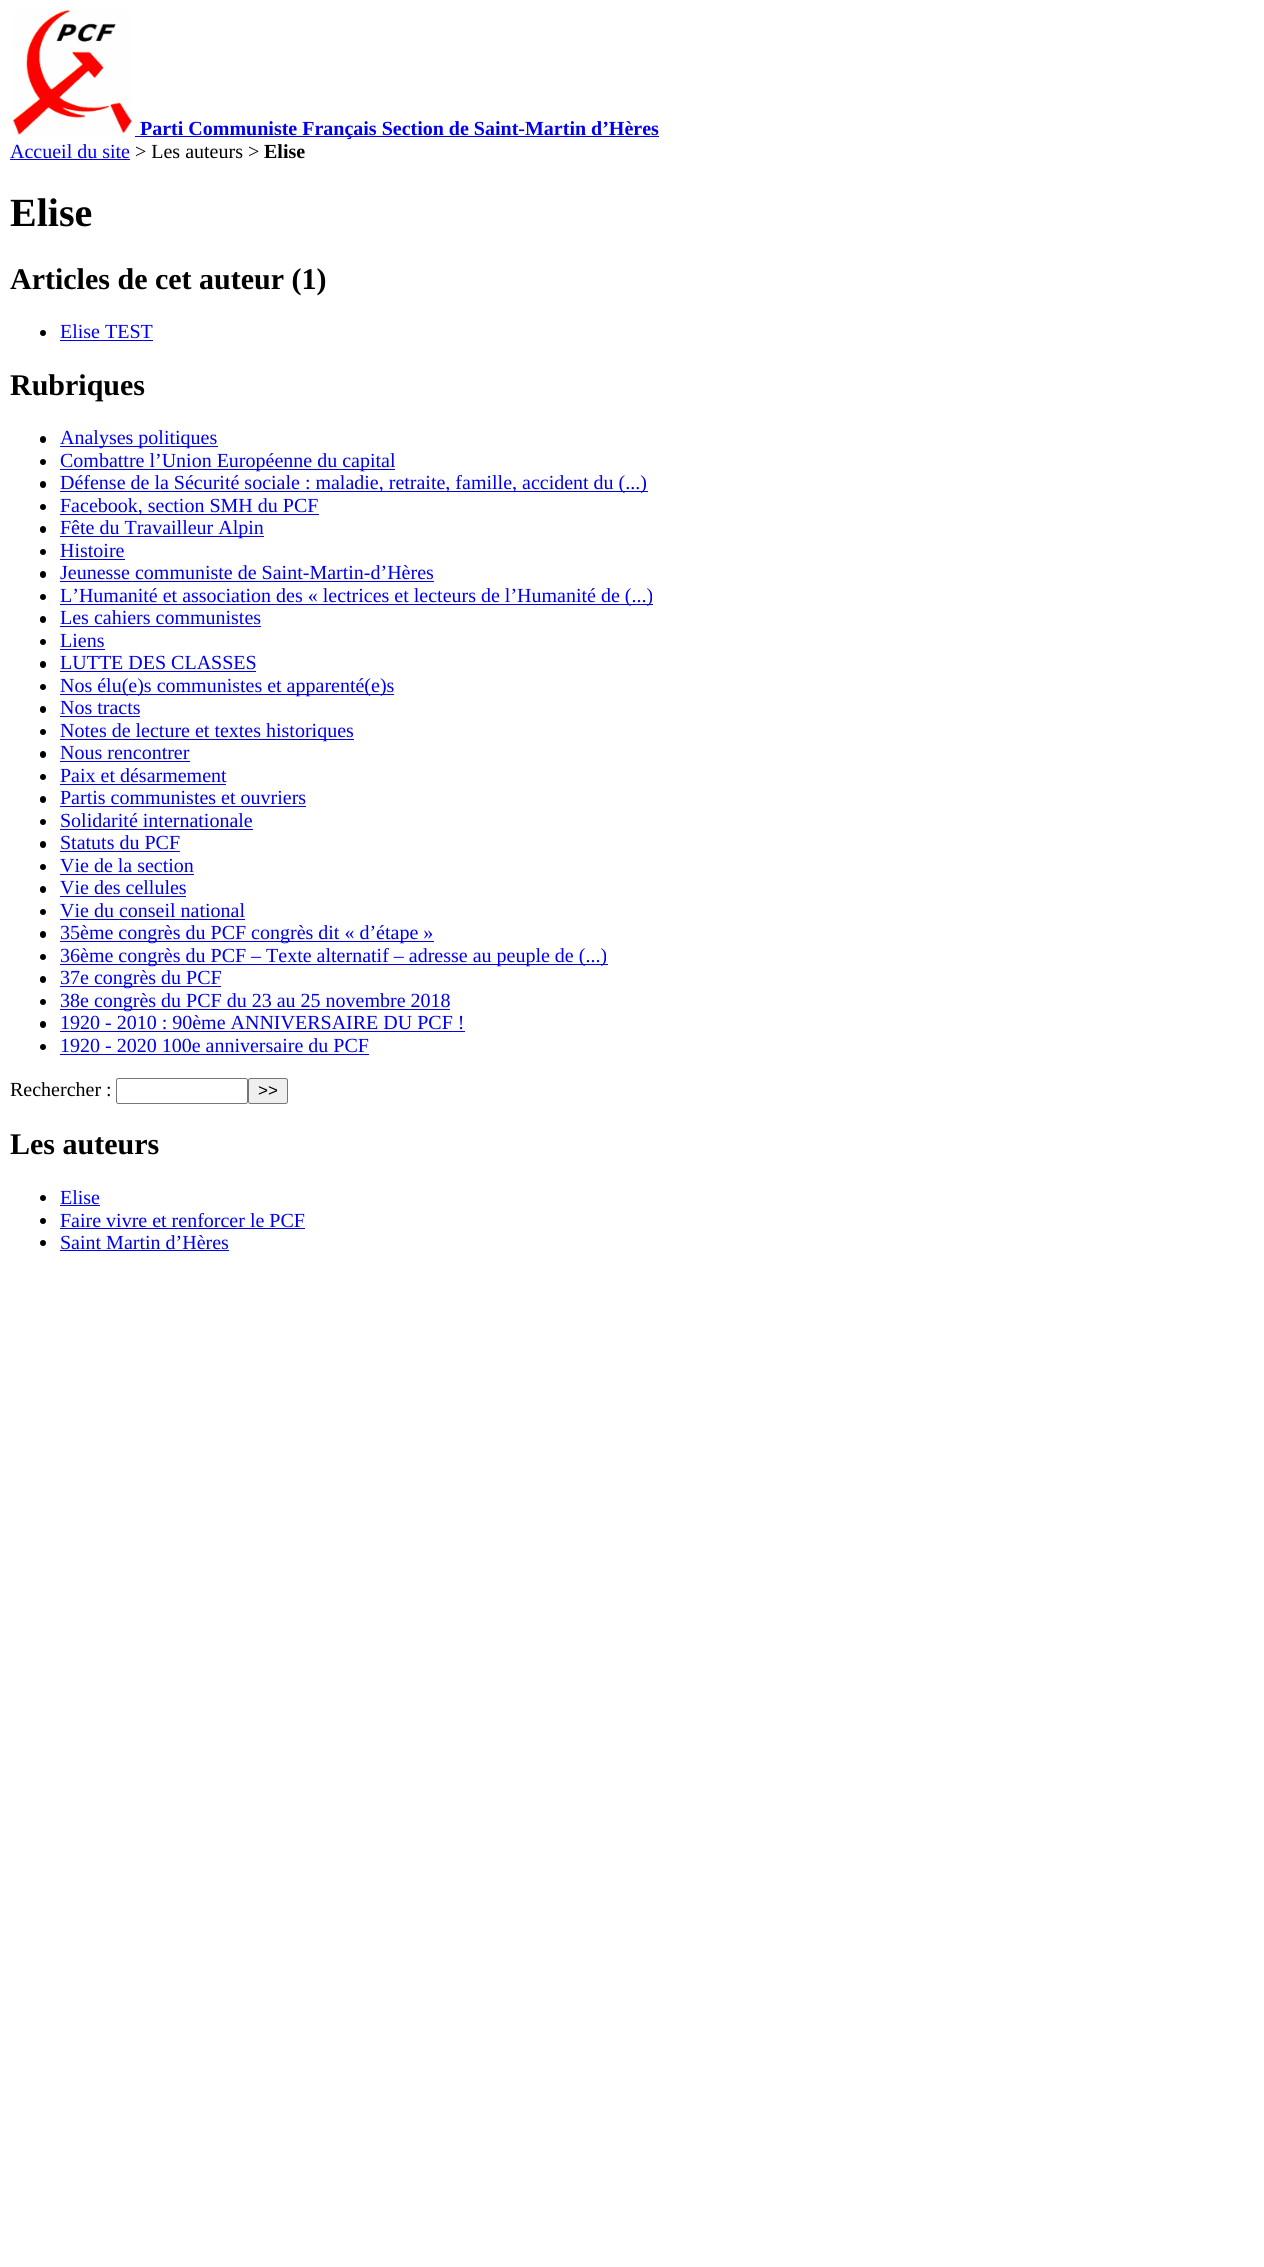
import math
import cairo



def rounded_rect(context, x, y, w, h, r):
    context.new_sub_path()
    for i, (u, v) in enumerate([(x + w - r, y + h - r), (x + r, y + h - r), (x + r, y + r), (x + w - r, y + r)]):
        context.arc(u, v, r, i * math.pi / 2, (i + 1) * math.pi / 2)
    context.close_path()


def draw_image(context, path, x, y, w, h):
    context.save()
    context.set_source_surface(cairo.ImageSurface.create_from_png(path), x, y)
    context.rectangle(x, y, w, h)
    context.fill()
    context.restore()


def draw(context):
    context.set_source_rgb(1, 1, 1)
    context.paint()
    draw_image(context, "images/1.png", 12, 10, 120, 125)
    context.set_source_rgb(0, 0, 238 / 255)
    context.rectangle(135, 136, 524, 1)
    context.fill()
    context.rectangle(10, 159, 120, 1)
    context.fill()
    context.set_source_rgb(0, 0, 0)
    context.arc(43, 333, 3, 0, 2 * math.pi)
    context.fill()
    context.set_source_rgb(0, 0, 238 / 255)
    context.rectangle(60, 340, 93, 1)
    context.fill()
    context.set_source_rgb(0, 0, 0)
    rounded_rect(context, 40, 436, 6, 7, 3)
    context.fill()
    context.set_source_rgb(0, 0, 238 / 255)
    context.rectangle(60, 446, 158, 1)
    context.fill()
    context.set_source_rgb(0, 0, 0)
    context.arc(43, 462, 3, 0, 2 * math.pi)
    context.fill()
    context.set_source_rgb(0, 0, 238 / 255)
    context.rectangle(60, 469, 335, 1)
    context.fill()
    context.set_source_rgb(0, 0, 0)
    rounded_rect(context, 40, 481, 6, 7, 3)
    context.fill()
    context.set_source_rgb(0, 0, 238 / 255)
    context.rectangle(60, 491, 588, 1)
    context.fill()
    context.set_source_rgb(0, 0, 0)
    context.arc(43, 507, 3, 0, 2 * math.pi)
    context.fill()
    context.set_source_rgb(0, 0, 238 / 255)
    context.rectangle(60, 514, 259, 1)
    context.fill()
    context.set_source_rgb(0, 0, 0)
    rounded_rect(context, 40, 526, 6, 7, 3)
    context.fill()
    context.set_source_rgb(0, 0, 238 / 255)
    context.rectangle(60, 536, 204, 1)
    context.fill()
    context.set_source_rgb(0, 0, 0)
    context.arc(43, 552, 3, 0, 2 * math.pi)
    context.fill()
    context.set_source_rgb(0, 0, 238 / 255)
    context.rectangle(60, 559, 65, 1)
    context.fill()
    context.set_source_rgb(0, 0, 0)
    rounded_rect(context, 40, 571, 6, 7, 3)
    context.fill()
    context.set_source_rgb(0, 0, 238 / 255)
    context.rectangle(60, 581, 374, 1)
    context.fill()
    context.set_source_rgb(0, 0, 0)
    context.arc(43, 597, 3, 0, 2 * math.pi)
    context.fill()
    context.set_source_rgb(0, 0, 238 / 255)
    context.rectangle(60, 604, 593, 1)
    context.fill()
    context.set_source_rgb(0, 0, 0)
    rounded_rect(context, 40, 616, 6, 7, 3)
    context.fill()
    context.set_source_rgb(0, 0, 238 / 255)
    context.rectangle(60, 626, 201, 1)
    context.fill()
    context.set_source_rgb(0, 0, 0)
    context.arc(43, 642, 3, 0, 2 * math.pi)
    context.fill()
    context.set_source_rgb(0, 0, 238 / 255)
    context.rectangle(60, 649, 45, 1)
    context.fill()
    context.set_source_rgb(0, 0, 0)
    rounded_rect(context, 40, 661, 6, 7, 3)
    context.fill()
    context.set_source_rgb(0, 0, 238 / 255)
    context.rectangle(60, 671, 196, 1)
    context.fill()
    context.set_source_rgb(0, 0, 0)
    context.arc(43, 687, 3, 0, 2 * math.pi)
    context.fill()
    context.set_source_rgb(0, 0, 238 / 255)
    context.rectangle(60, 694, 334, 1)
    context.fill()
    context.set_source_rgb(0, 0, 0)
    rounded_rect(context, 40, 706, 6, 7, 3)
    context.fill()
    context.set_source_rgb(0, 0, 238 / 255)
    context.rectangle(60, 716, 80, 1)
    context.fill()
    context.set_source_rgb(0, 0, 0)
    context.arc(43, 732, 3, 0, 2 * math.pi)
    context.fill()
    context.set_source_rgb(0, 0, 238 / 255)
    context.rectangle(60, 739, 294, 1)
    context.fill()
    context.set_source_rgb(0, 0, 0)
    rounded_rect(context, 40, 751, 6, 7, 3)
    context.fill()
    context.set_source_rgb(0, 0, 238 / 255)
    context.rectangle(60, 761, 130, 1)
    context.fill()
    context.set_source_rgb(0, 0, 0)
    context.arc(43, 777, 3, 0, 2 * math.pi)
    context.fill()
    context.set_source_rgb(0, 0, 238 / 255)
    context.rectangle(60, 784, 166, 1)
    context.fill()
    context.set_source_rgb(0, 0, 0)
    rounded_rect(context, 40, 796, 6, 7, 3)
    context.fill()
    context.set_source_rgb(0, 0, 238 / 255)
    context.rectangle(60, 806, 246, 1)
    context.fill()
    context.set_source_rgb(0, 0, 0)
    context.arc(43, 822, 3, 0, 2 * math.pi)
    context.fill()
    context.set_source_rgb(0, 0, 238 / 255)
    context.rectangle(60, 829, 193, 1)
    context.fill()
    context.set_source_rgb(0, 0, 0)
    rounded_rect(context, 40, 841, 6, 7, 3)
    context.fill()
    context.set_source_rgb(0, 0, 238 / 255)
    context.rectangle(60, 851, 120, 1)
    context.fill()
    context.set_source_rgb(0, 0, 0)
    context.arc(43, 867, 3, 0, 2 * math.pi)
    context.fill()
    context.set_source_rgb(0, 0, 238 / 255)
    context.rectangle(60, 874, 134, 1)
    context.fill()
    context.set_source_rgb(0, 0, 0)
    rounded_rect(context, 40, 886, 6, 7, 3)
    context.fill()
    context.set_source_rgb(0, 0, 238 / 255)
    context.rectangle(60, 896, 126, 1)
    context.fill()
    context.set_source_rgb(0, 0, 0)
    context.arc(43, 912, 3, 0, 2 * math.pi)
    context.fill()
    context.set_source_rgb(0, 0, 238 / 255)
    context.rectangle(60, 919, 185, 1)
    context.fill()
    context.set_source_rgb(0, 0, 0)
    rounded_rect(context, 40, 931, 6, 7, 3)
    context.fill()
    context.set_source_rgb(0, 0, 238 / 255)
    context.rectangle(60, 941, 374, 1)
    context.fill()
    context.set_source_rgb(0, 0, 0)
    context.arc(43, 957, 3, 0, 2 * math.pi)
    context.fill()
    context.set_source_rgb(0, 0, 238 / 255)
    context.rectangle(60, 964, 548, 1)
    context.fill()
    context.set_source_rgb(0, 0, 0)
    rounded_rect(context, 40, 976, 6, 7, 3)
    context.fill()
    context.set_source_rgb(0, 0, 238 / 255)
    context.rectangle(60, 986, 161, 1)
    context.fill()
    context.set_source_rgb(0, 0, 0)
    context.arc(43, 1002, 3, 0, 2 * math.pi)
    context.fill()
    context.set_source_rgb(0, 0, 238 / 255)
    context.rectangle(60, 1009, 390, 1)
    context.fill()
    context.set_source_rgb(0, 0, 0)
    rounded_rect(context, 40, 1021, 6, 7, 3)
    context.fill()
    context.set_source_rgb(0, 0, 238 / 255)
    context.rectangle(60, 1031, 405, 1)
    context.fill()
    context.set_source_rgb(0, 0, 0)
    context.arc(43, 1047, 3, 0, 2 * math.pi)
    context.fill()
    context.set_source_rgb(0, 0, 238 / 255)
    context.rectangle(60, 1054, 309, 1)
    context.fill()
    rounded_rect(context, 116.5, 1078.5, 131, 25, 2)
    context.set_source_rgb(118 / 255, 118 / 255, 118 / 255)
    context.set_line_width(1)
    context.stroke()
    context.set_source_rgb(239 / 255, 239 / 255, 239 / 255)
    rounded_rect(context, 248.5, 1078.5, 39, 25, 2)
    context.fill_preserve()
    context.set_source_rgb(118 / 255, 118 / 255, 118 / 255)
    context.stroke()
    context.set_source_rgb(0, 0, 0)
    context.arc(43, 1198, 3, 0, 2 * math.pi)
    context.fill()
    context.set_source_rgb(0, 0, 238 / 255)
    context.rectangle(60, 1205, 40, 1)
    context.fill()
    context.set_source_rgb(0, 0, 0)
    context.arc(43, 1221, 3, 0, 2 * math.pi)
    context.fill()
    context.set_source_rgb(0, 0, 238 / 255)
    context.rectangle(60, 1228, 245, 1)
    context.fill()
    context.set_source_rgb(0, 0, 0)
    context.arc(43, 1243, 3, 0, 2 * math.pi)
    context.fill()
    context.set_source_rgb(0, 0, 238 / 255)
    context.rectangle(60, 1250, 169, 1)
    context.fill()
    context.select_font_face("Liberation Serif", cairo.FontSlant.NORMAL, cairo.FontWeight.BOLD)
    context.set_font_size(20)
    context.move_to(140, 135)
    context.show_text("Parti Communiste Français Section de Saint-Martin d’Hères")
    context.select_font_face("Liberation Serif")
    context.move_to(10, 158)
    context.show_text("Accueil du site")
    context.set_source_rgb(0, 0, 0)
    context.move_to(135, 158)
    context.show_text("> Les auteurs >")
    context.select_font_face("Liberation Serif", cairo.FontSlant.NORMAL, cairo.FontWeight.BOLD)
    context.move_to(264, 158)
    context.show_text("Elise")
    context.set_font_size(40)
    context.move_to(10, 226)
    context.show_text("Elise")
    context.set_font_size(30)
    context.move_to(10, 289)
    context.show_text("Articles de cet auteur (1)")
    context.select_font_face("Liberation Serif")
    context.set_font_size(20)
    context.set_source_rgb(0, 0, 238 / 255)
    context.move_to(60, 338)
    context.show_text("Elise TEST")
    context.select_font_face("Liberation Serif", cairo.FontSlant.NORMAL, cairo.FontWeight.BOLD)
    context.set_font_size(30)
    context.set_source_rgb(0, 0, 0)
    context.move_to(10, 395)
    context.show_text("Rubriques")
    context.select_font_face("Liberation Serif")
    context.set_font_size(20)
    context.set_source_rgb(0, 0, 238 / 255)
    context.move_to(60, 444)
    context.show_text("Analyses politiques")
    context.move_to(60, 467)
    context.show_text("Combattre l’Union Européenne du capital")
    context.move_to(60, 489)
    context.show_text("Défense de la Sécurité sociale : maladie, retraite, famille, accident du (...)")
    context.move_to(60, 512)
    context.show_text("Facebook, section SMH du PCF")
    context.move_to(60, 534)
    context.show_text("Fête du Travailleur Alpin")
    context.move_to(60, 557)
    context.show_text("Histoire")
    context.move_to(60, 579)
    context.show_text("Jeunesse communiste de Saint-Martin-d’Hères")
    context.move_to(60, 602)
    context.show_text("L’Humanité et association des « lectrices et lecteurs de l’Humanité de (...)")
    context.move_to(60, 624)
    context.show_text("Les cahiers communistes")
    context.move_to(60, 647)
    context.show_text("Liens")
    context.move_to(60, 669)
    context.show_text("LUTTE DES CLASSES")
    context.move_to(60, 692)
    context.show_text("Nos élu(e)s communistes et apparenté(e)s")
    context.move_to(60, 714)
    context.show_text("Nos tracts")
    context.move_to(60, 737)
    context.show_text("Notes de lecture et textes historiques")
    context.move_to(60, 759)
    context.show_text("Nous rencontrer")
    context.move_to(60, 782)
    context.show_text("Paix et désarmement")
    context.move_to(60, 804)
    context.show_text("Partis communistes et ouvriers")
    context.move_to(60, 827)
    context.show_text("Solidarité internationale")
    context.move_to(60, 849)
    context.show_text("Statuts du PCF")
    context.move_to(60, 872)
    context.show_text("Vie de la section")
    context.move_to(60, 894)
    context.show_text("Vie des cellules")
    context.move_to(60, 917)
    context.show_text("Vie du conseil national")
    context.move_to(60, 939)
    context.show_text("35ème congrès du PCF congrès dit « d’étape »")
    context.move_to(60, 962)
    context.show_text("36ème congrès du PCF – Texte alternatif – adresse au peuple de (...)")
    context.move_to(60, 984)
    context.show_text("37e congrès du PCF")
    context.move_to(60, 1007)
    context.show_text("38e congrès du PCF du 23 au 25 novembre 2018")
    context.move_to(60, 1029)
    context.show_text("1920 - 2010 : 90ème ANNIVERSAIRE DU PCF !")
    context.move_to(60, 1052)
    context.show_text("1920 - 2020 100e anniversaire du PCF")
    context.set_source_rgb(0, 0, 0)
    context.move_to(10, 1096)
    context.show_text("Rechercher :")
    context.select_font_face("Liberation Sans")
    context.set_font_size(17)
    context.move_to(258, 1096)
    context.show_text(">>")
    context.select_font_face("Liberation Serif", cairo.FontSlant.NORMAL, cairo.FontWeight.BOLD)
    context.set_font_size(30)
    context.move_to(10, 1154)
    context.show_text("Les auteurs")
    context.select_font_face("Liberation Serif")
    context.set_font_size(20)
    context.set_source_rgb(0, 0, 238 / 255)
    context.move_to(60, 1204)
    context.show_text("Elise")
    context.move_to(60, 1227)
    context.show_text("Faire vivre et renforcer le PCF")
    context.move_to(60, 1249)
    context.show_text("Saint Martin d’Hères")


surface = cairo.ImageSurface(cairo.Format.RGB24, 1264, 2267)
context = cairo.Context(surface)
options = cairo.FontOptions()
options.set_hint_metrics(cairo.HintMetrics.OFF)
options.set_hint_style(cairo.HintStyle.NONE)
context.set_font_options(options)
context.set_miter_limit(4)
draw(context)
surface.write_to_png("out.png")
